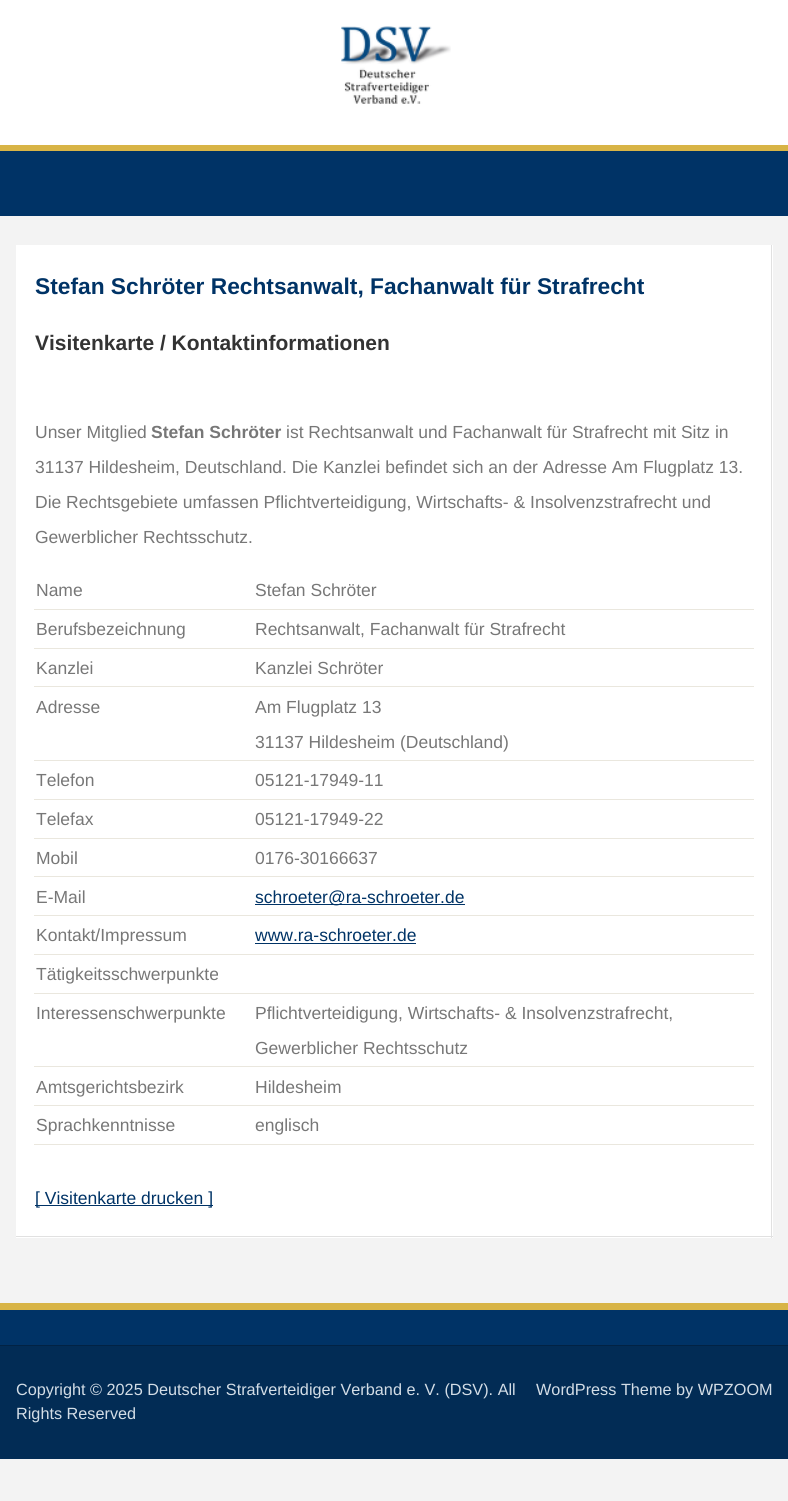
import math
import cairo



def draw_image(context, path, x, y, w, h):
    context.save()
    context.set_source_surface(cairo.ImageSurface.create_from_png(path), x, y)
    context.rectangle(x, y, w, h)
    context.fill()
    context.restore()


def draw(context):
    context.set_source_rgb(243 / 255, 243 / 255, 243 / 255)
    context.paint()
    context.set_source_rgb(1, 1, 1)
    context.rectangle(0, 0, 788, 145)
    context.fill()
    draw_image(context, "images/1.png", 341, 26, 110, 78)
    context.set_source_rgb(0, 51 / 255, 102 / 255)
    context.rectangle(0, 151, 788, 65)
    context.fill()
    context.set_source_rgb(216 / 255, 180 / 255, 70 / 255)
    context.rectangle(0, 145, 788, 6)
    context.fill()
    context.set_source_rgb(1, 1, 1)
    context.rectangle(16, 245, 757, 993)
    context.fill()
    context.set_source_rgb(225 / 255, 225 / 255, 225 / 255)
    context.rectangle(771, 245, 1, 993)
    context.fill()
    context.rectangle(16, 1236, 757, 1)
    context.fill()
    context.set_source_rgb(234 / 255, 231 / 255, 222 / 255)
    context.rectangle(34, 609, 720, 1)
    context.fill()
    context.rectangle(34, 648, 720, 1)
    context.fill()
    context.rectangle(34, 686, 720, 1)
    context.fill()
    context.rectangle(34, 760, 720, 1)
    context.fill()
    context.rectangle(34, 799, 720, 1)
    context.fill()
    context.rectangle(34, 838, 720, 1)
    context.fill()
    context.rectangle(34, 876, 720, 1)
    context.fill()
    context.rectangle(34, 915, 720, 1)
    context.fill()
    context.set_source_rgb(0, 51 / 255, 102 / 255)
    context.rectangle(255, 904, 210, 1)
    context.fill()
    context.set_source_rgb(234 / 255, 231 / 255, 222 / 255)
    context.rectangle(34, 954, 720, 1)
    context.fill()
    context.set_source_rgb(0, 51 / 255, 102 / 255)
    context.rectangle(255, 943, 161, 1)
    context.fill()
    context.set_source_rgb(234 / 255, 231 / 255, 222 / 255)
    context.rectangle(34, 993, 720, 1)
    context.fill()
    context.rectangle(34, 1066, 720, 1)
    context.fill()
    context.rectangle(34, 1105, 720, 1)
    context.fill()
    context.rectangle(34, 1144, 720, 1)
    context.fill()
    context.set_source_rgb(0, 51 / 255, 102 / 255)
    context.rectangle(35, 1205, 178, 1)
    context.fill()
    context.rectangle(0, 1310, 788, 35)
    context.fill()
    context.set_source_rgb(216 / 255, 180 / 255, 70 / 255)
    context.rectangle(0, 1303, 788, 7)
    context.fill()
    context.set_source_rgb(2 / 255, 44 / 255, 85 / 255)
    context.rectangle(0, 1346, 788, 113)
    context.fill()
    context.set_source_rgb(2 / 255, 35 / 255, 68 / 255)
    context.rectangle(0, 1345, 788, 1)
    context.fill()
    context.select_font_face("Liberation Sans", cairo.FontSlant.NORMAL, cairo.FontWeight.BOLD)
    context.set_font_size(22.75)
    context.set_source_rgb(0, 51 / 255, 102 / 255)
    context.move_to(35, 294)
    context.show_text("Stefan Schröter Rechtsanwalt, Fachanwalt für Strafrecht")
    context.set_font_size(21)
    context.set_source_rgb(51 / 255, 51 / 255, 51 / 255)
    context.move_to(35, 350)
    context.show_text("Visitenkarte / Kontaktinformationen")
    context.select_font_face("Liberation Sans")
    context.set_font_size(17.5)
    context.set_source_rgb(119 / 255, 119 / 255, 119 / 255)
    context.move_to(35, 438)
    context.show_text("Unser Mitglied")
    context.select_font_face("Liberation Sans", cairo.FontSlant.NORMAL, cairo.FontWeight.BOLD)
    context.move_to(151, 438)
    context.show_text("Stefan Schröter")
    context.select_font_face("Liberation Sans")
    context.move_to(286, 438)
    context.show_text("ist Rechtsanwalt und Fachanwalt für Strafrecht mit Sitz in")
    context.move_to(35, 473)
    context.show_text("31137 Hildesheim, Deutschland. Die Kanzlei befindet sich an der Adresse Am Flugplatz 13.")
    context.move_to(35, 508)
    context.show_text("Die Rechtsgebiete umfassen Pflichtverteidigung, Wirtschafts- & Insolvenzstrafrecht und")
    context.move_to(35, 543)
    context.show_text("Gewerblicher Rechtsschutz.")
    context.move_to(36, 596)
    context.show_text("Name")
    context.move_to(255, 596)
    context.show_text("Stefan Schröter")
    context.move_to(36, 635)
    context.show_text("Berufsbezeichnung")
    context.move_to(255, 635)
    context.show_text("Rechtsanwalt, Fachanwalt für Strafrecht")
    context.move_to(36, 674)
    context.show_text("Kanzlei")
    context.move_to(255, 674)
    context.show_text("Kanzlei Schröter")
    context.move_to(36, 713)
    context.show_text("Adresse")
    context.move_to(255, 713)
    context.show_text("Am Flugplatz 13")
    context.move_to(255, 748)
    context.show_text("31137 Hildesheim (Deutschland)")
    context.move_to(36, 786)
    context.show_text("Telefon")
    context.move_to(255, 786)
    context.show_text("05121-17949-11")
    context.move_to(36, 825)
    context.show_text("Telefax")
    context.move_to(255, 825)
    context.show_text("05121-17949-22")
    context.move_to(36, 864)
    context.show_text("Mobil")
    context.move_to(255, 864)
    context.show_text("0176-30166637")
    context.move_to(36, 903)
    context.show_text("E-Mail")
    context.set_source_rgb(0, 51 / 255, 102 / 255)
    context.move_to(255, 903)
    context.show_text("schroeter@ra-schroeter.de")
    context.set_source_rgb(119 / 255, 119 / 255, 119 / 255)
    context.move_to(36, 941)
    context.show_text("Kontakt/Impressum")
    context.set_source_rgb(0, 51 / 255, 102 / 255)
    context.move_to(255, 941)
    context.show_text("www.ra-schroeter.de")
    context.set_source_rgb(119 / 255, 119 / 255, 119 / 255)
    context.move_to(36, 980)
    context.show_text("Tätigkeitsschwerpunkte")
    context.move_to(36, 1019)
    context.show_text("Interessenschwerpunkte")
    context.move_to(255, 1019)
    context.show_text("Pflichtverteidigung, Wirtschafts- & Insolvenzstrafrecht,")
    context.move_to(255, 1054)
    context.show_text("Gewerblicher Rechtsschutz")
    context.move_to(36, 1093)
    context.show_text("Amtsgerichtsbezirk")
    context.move_to(255, 1093)
    context.show_text("Hildesheim")
    context.move_to(36, 1131)
    context.show_text("Sprachkenntnisse")
    context.move_to(255, 1131)
    context.show_text("englisch")
    context.set_source_rgb(0, 51 / 255, 102 / 255)
    context.move_to(35, 1204)
    context.show_text("[ Visitenkarte drucken ]")
    context.set_font_size(16.25)
    context.set_source_rgb(211 / 255, 221 / 255, 230 / 255)
    context.move_to(16, 1395)
    context.show_text("Copyright © 2025 Deutscher Strafverteidiger Verband e. V. (DSV). All")
    context.move_to(16, 1419)
    context.show_text("Rights Reserved")
    context.move_to(536, 1395)
    context.show_text("WordPress Theme by WPZOOM")


surface = cairo.ImageSurface(cairo.Format.RGB24, 788, 1501)
context = cairo.Context(surface)
options = cairo.FontOptions()
options.set_hint_metrics(cairo.HintMetrics.OFF)
options.set_hint_style(cairo.HintStyle.NONE)
context.set_font_options(options)
context.set_miter_limit(4)
draw(context)
surface.write_to_png("out.png")
